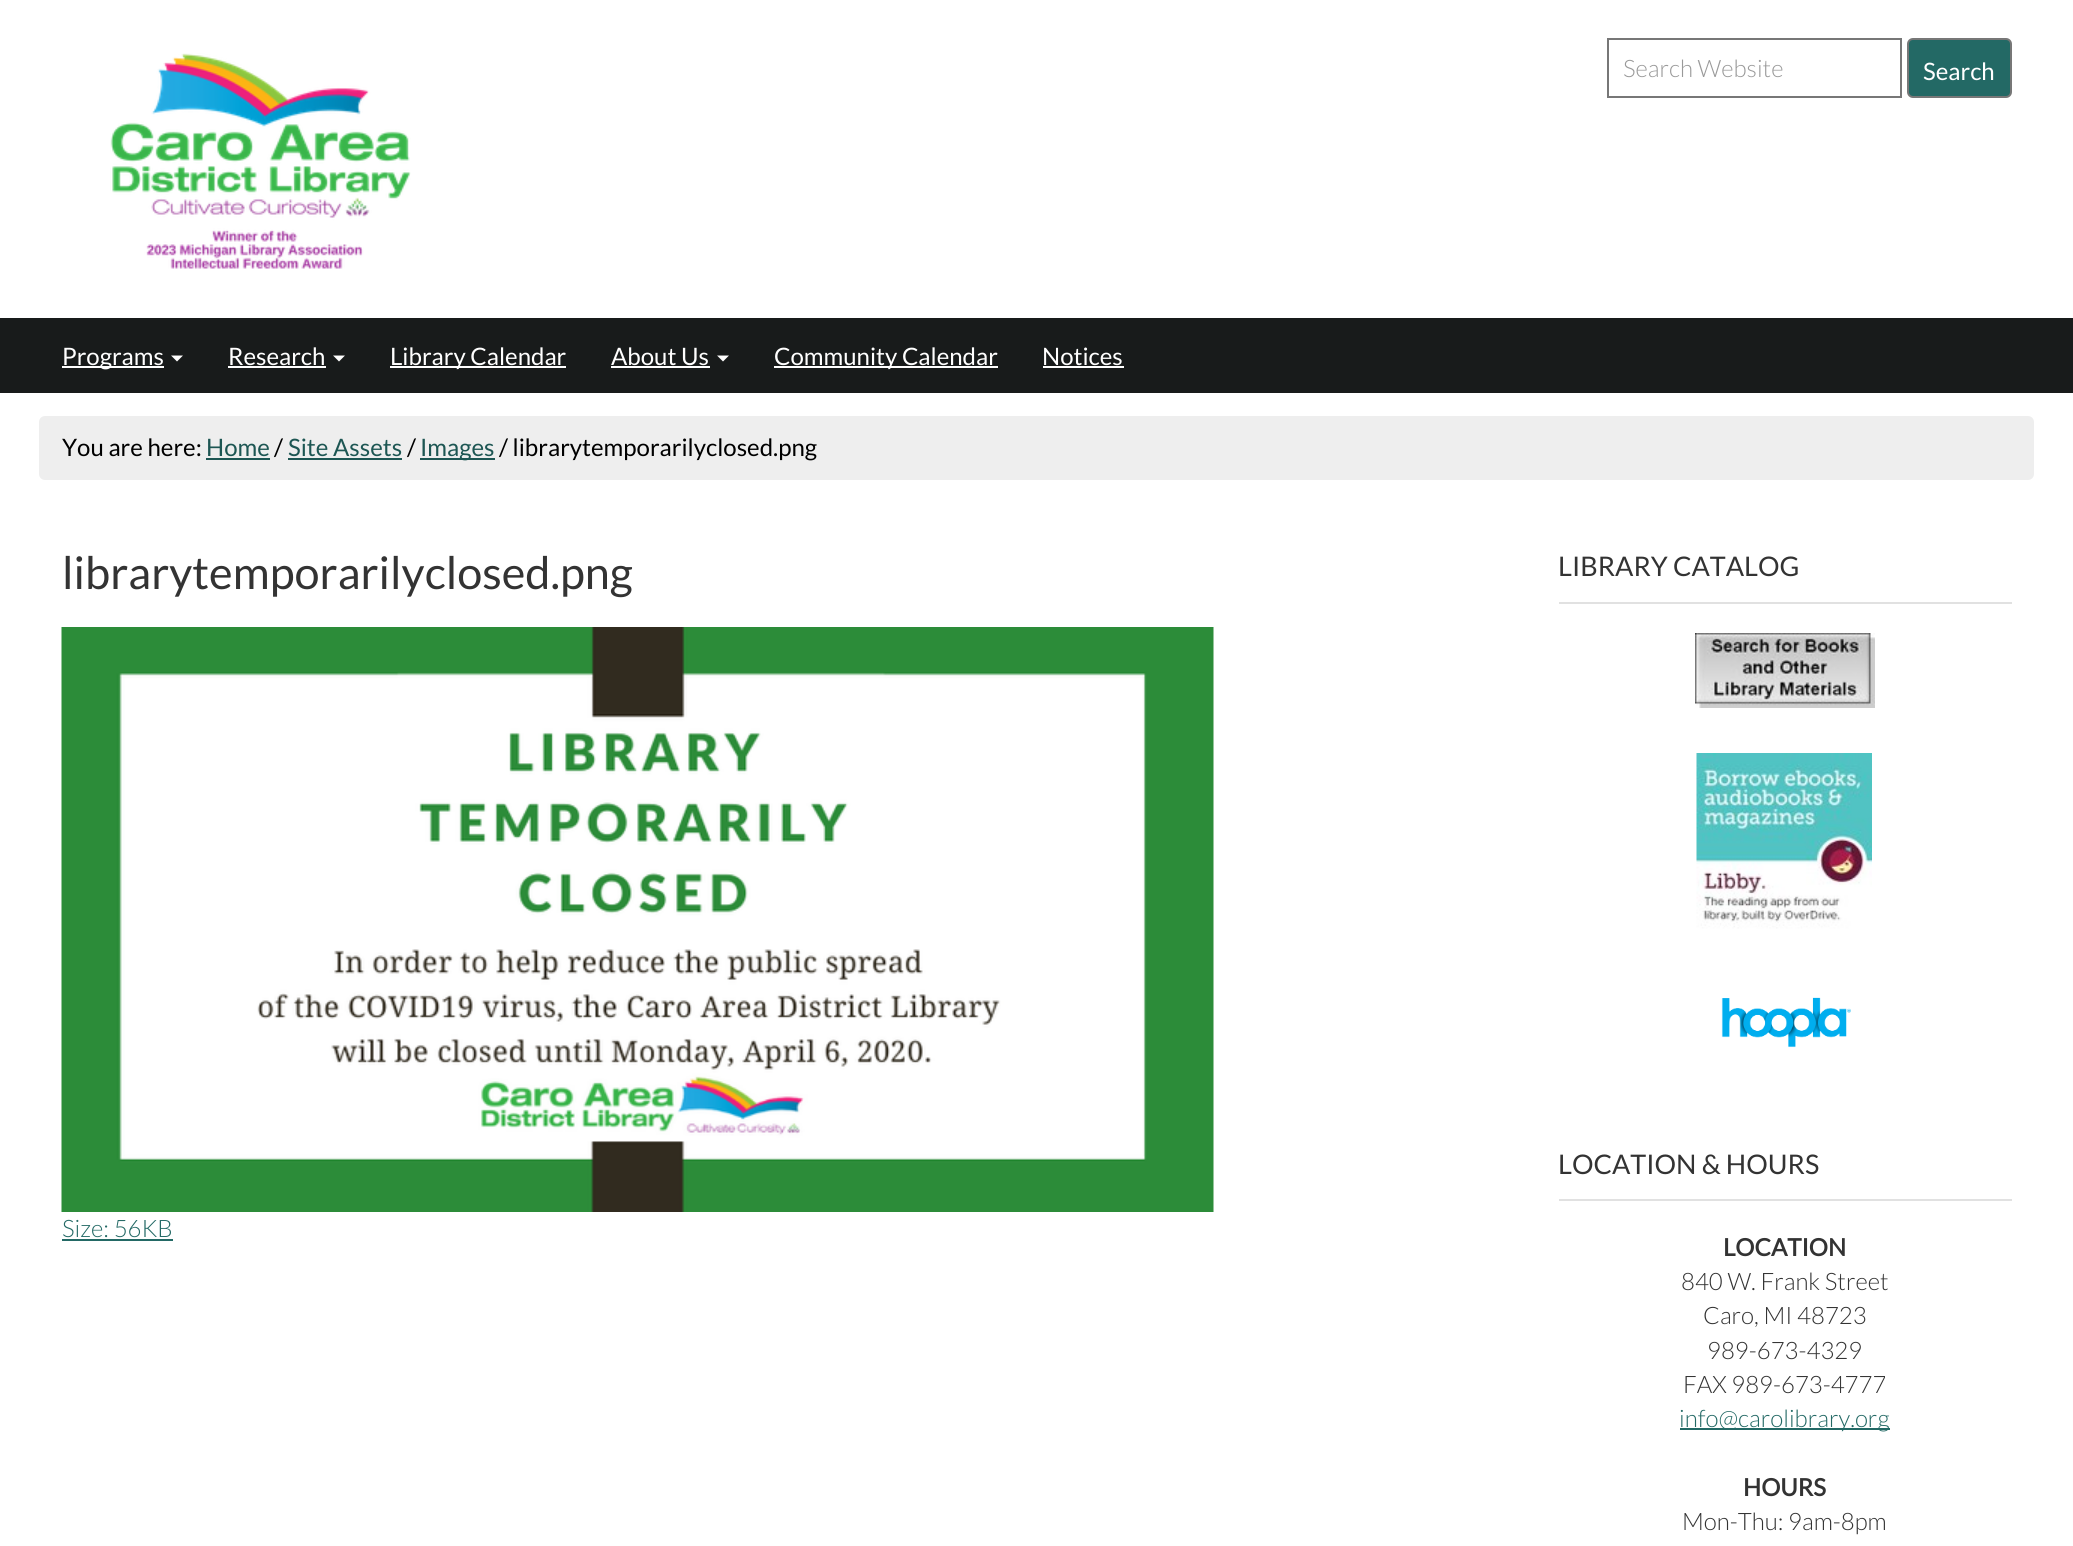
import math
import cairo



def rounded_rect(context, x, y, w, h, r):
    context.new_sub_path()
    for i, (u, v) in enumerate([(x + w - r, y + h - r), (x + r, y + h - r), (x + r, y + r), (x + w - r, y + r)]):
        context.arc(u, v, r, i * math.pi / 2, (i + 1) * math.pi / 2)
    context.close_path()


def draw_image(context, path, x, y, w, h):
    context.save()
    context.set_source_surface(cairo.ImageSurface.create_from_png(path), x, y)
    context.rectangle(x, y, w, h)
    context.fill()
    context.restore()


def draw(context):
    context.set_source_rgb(1, 1, 1)
    context.paint()
    draw_image(context, "images/1.png", 110, 53, 301, 216)
    context.rectangle(1608, 39, 293, 58)
    context.set_source_rgb(119 / 255, 119 / 255, 119 / 255)
    context.stroke()
    context.set_source_rgb(35 / 255, 105 / 255, 101 / 255)
    rounded_rect(context, 1908, 39, 103, 58, 5)
    context.fill_preserve()
    context.set_source_rgb(119 / 255, 119 / 255, 119 / 255)
    context.stroke()
    context.set_source_rgb(24 / 255, 27 / 255, 27 / 255)
    context.rectangle(0, 318, 2073, 75)
    context.fill()
    context.set_source_rgb(1, 1, 1)
    context.rectangle(62, 366, 102, 2)
    context.fill()
    context.new_path()
    context.move_to(171, 355.5)
    context.line_to(183, 355.5)
    context.line_to(177, 361.5)
    context.close_path()
    context.fill()
    context.rectangle(228, 366, 98, 2)
    context.fill()
    context.new_path()
    context.move_to(333, 355.5)
    context.line_to(345, 355.5)
    context.line_to(339, 361.5)
    context.close_path()
    context.fill()
    context.rectangle(390, 366, 176, 2)
    context.fill()
    context.rectangle(611, 366, 99, 2)
    context.fill()
    context.new_path()
    context.move_to(717, 355.5)
    context.line_to(729, 355.5)
    context.line_to(723, 361.5)
    context.close_path()
    context.fill()
    context.rectangle(774, 366, 224, 2)
    context.fill()
    context.rectangle(1043, 366, 81, 2)
    context.fill()
    context.set_source_rgb(238 / 255, 238 / 255, 238 / 255)
    rounded_rect(context, 39, 416, 1995, 64, 6)
    context.fill()
    context.set_source_rgb(29 / 255, 86 / 255, 83 / 255)
    context.rectangle(206, 458, 64, 2)
    context.fill()
    context.rectangle(288, 458, 114, 2)
    context.fill()
    context.rectangle(420, 458, 75, 2)
    context.fill()
    draw_image(context, "images/2.png", 61, 627, 1153, 585)
    context.set_source_rgb(35 / 255, 105 / 255, 101 / 255)
    context.rectangle(62, 1239, 111, 2)
    context.fill()
    context.set_source_rgb(225 / 255, 225 / 255, 225 / 255)
    context.rectangle(1559, 602, 453, 2)
    context.fill()
    draw_image(context, "images/3.png", 1695, 633, 180, 75)
    draw_image(context, "images/4.png", 1696, 753, 176, 176)
    draw_image(context, "images/5.png", 1721, 997, 130, 51)
    context.rectangle(1559, 1199, 453, 2)
    context.fill()
    context.set_source_rgb(35 / 255, 105 / 255, 101 / 255)
    context.rectangle(1680, 1428, 210, 2)
    context.fill()
    context.select_font_face("Lato Light")
    context.set_font_size(24)
    context.set_source_rgb(153 / 255, 153 / 255, 153 / 255)
    context.move_to(1623, 77)
    context.show_text("Search Website")
    context.select_font_face("Lato")
    context.set_source_rgb(1, 1, 1)
    context.move_to(1923, 80)
    context.show_text("Search")
    context.move_to(62, 365)
    context.show_text("Programs")
    context.move_to(228, 365)
    context.show_text("Research")
    context.move_to(390, 365)
    context.show_text("Library Calendar")
    context.move_to(611, 365)
    context.show_text("About Us")
    context.move_to(774, 365)
    context.show_text("Community Calendar")
    context.move_to(1042, 365)
    context.show_text("Notices")
    context.set_source_rgb(0, 0, 0)
    context.move_to(62, 456)
    context.show_text("You are here:")
    context.set_source_rgb(29 / 255, 86 / 255, 83 / 255)
    context.move_to(206, 456)
    context.show_text("Home")
    context.set_source_rgb(0, 0, 0)
    context.move_to(274, 456)
    context.show_text("/")
    context.set_source_rgb(29 / 255, 86 / 255, 83 / 255)
    context.move_to(288, 456)
    context.show_text("Site Assets")
    context.set_source_rgb(0, 0, 0)
    context.move_to(407, 456)
    context.show_text("/")
    context.set_source_rgb(29 / 255, 86 / 255, 83 / 255)
    context.move_to(420, 456)
    context.show_text("Images")
    context.set_source_rgb(0, 0, 0)
    context.move_to(499, 456)
    context.show_text("/ librarytemporarilyclosed.png")
    context.set_font_size(45)
    context.set_source_rgb(51 / 255, 51 / 255, 51 / 255)
    context.move_to(62, 589)
    context.show_text("librarytemporarilyclosed.png")
    context.select_font_face("Lato Light")
    context.set_font_size(24)
    context.set_source_rgb(35 / 255, 105 / 255, 101 / 255)
    context.move_to(62, 1237)
    context.show_text("Size: 56KB")
    context.select_font_face("Lato")
    context.set_font_size(27)
    context.set_source_rgb(51 / 255, 51 / 255, 51 / 255)
    context.move_to(1558, 576)
    context.show_text("LIBRARY CATALOG")
    context.move_to(1558, 1174)
    context.show_text("LOCATION & HOURS")
    context.select_font_face("Lato", cairo.FontSlant.NORMAL, cairo.FontWeight.BOLD)
    context.set_font_size(24)
    context.move_to(1723, 1256)
    context.show_text("LOCATION")
    context.select_font_face("Lato Light")
    context.move_to(1681, 1290)
    context.show_text("840 W. Frank Street")
    context.move_to(1703, 1324)
    context.show_text("Caro, MI 48723")
    context.move_to(1707, 1359)
    context.show_text("989-673-4329")
    context.move_to(1683, 1393)
    context.show_text("FAX 989-673-4777")
    context.set_source_rgb(35 / 255, 105 / 255, 101 / 255)
    context.move_to(1679, 1427)
    context.show_text("info@carolibrary.org")
    context.select_font_face("Lato", cairo.FontSlant.NORMAL, cairo.FontWeight.BOLD)
    context.set_source_rgb(51 / 255, 51 / 255, 51 / 255)
    context.move_to(1743, 1496)
    context.show_text("HOURS")
    context.select_font_face("Lato Light")
    context.move_to(1682, 1530)
    context.show_text("Mon-Thu: 9am-8pm")


surface = cairo.ImageSurface(cairo.Format.RGB24, 2073, 1546)
context = cairo.Context(surface)
options = cairo.FontOptions()
options.set_hint_metrics(cairo.HintMetrics.OFF)
options.set_hint_style(cairo.HintStyle.NONE)
context.set_font_options(options)
context.set_miter_limit(4)
draw(context)
surface.write_to_png("out.png")
